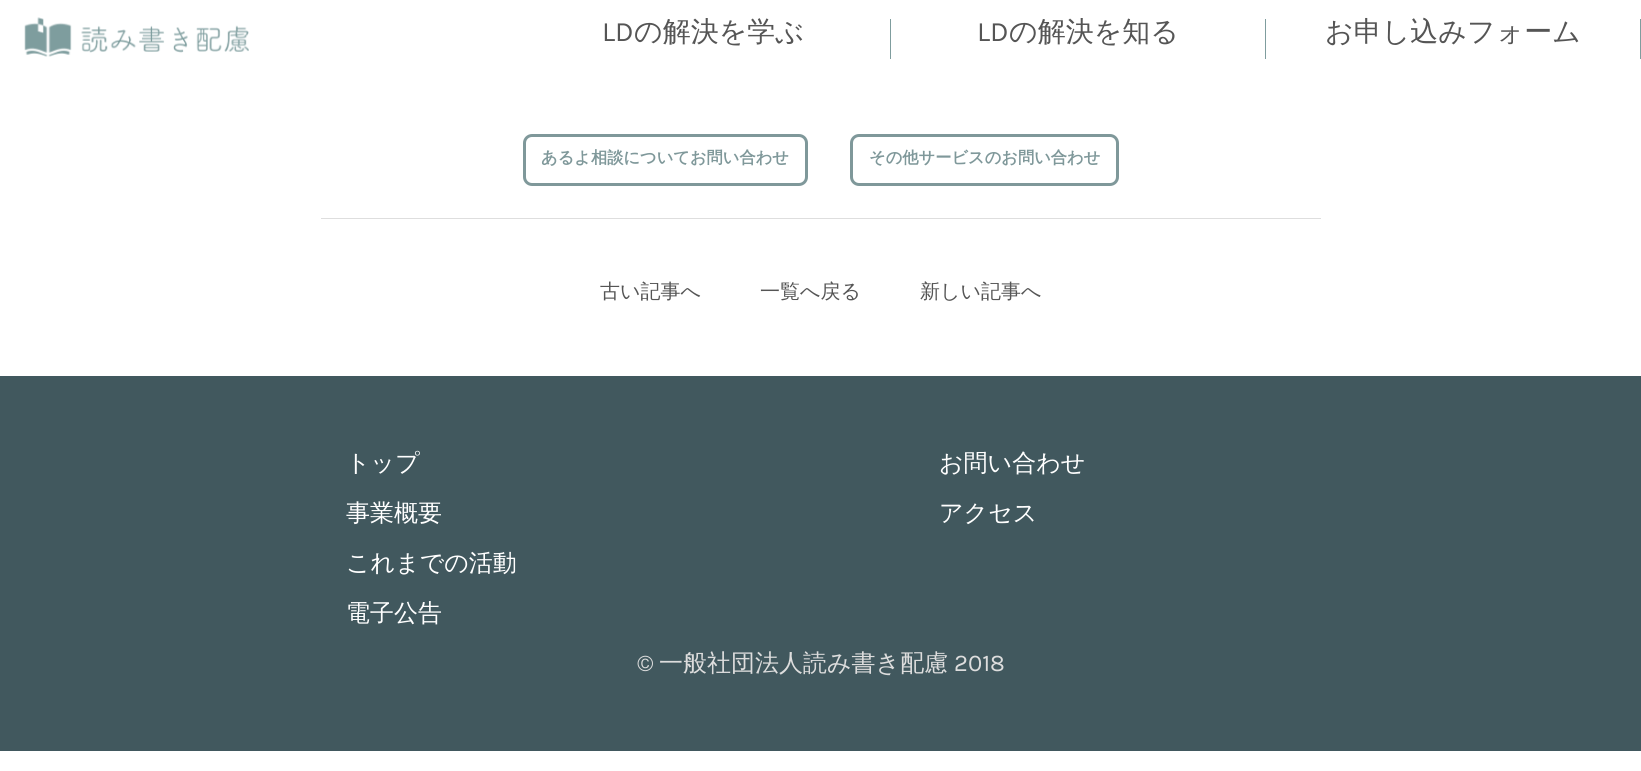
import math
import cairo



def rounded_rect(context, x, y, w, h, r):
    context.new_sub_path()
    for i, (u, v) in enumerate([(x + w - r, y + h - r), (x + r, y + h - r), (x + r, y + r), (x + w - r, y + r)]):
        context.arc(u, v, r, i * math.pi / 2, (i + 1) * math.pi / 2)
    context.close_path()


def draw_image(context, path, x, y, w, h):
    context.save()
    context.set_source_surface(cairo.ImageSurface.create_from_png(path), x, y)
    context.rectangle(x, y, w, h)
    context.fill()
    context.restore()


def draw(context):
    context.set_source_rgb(1, 1, 1)
    context.paint()
    draw_image(context, "images/1.png", 24, 17, 225, 40)
    context.set_source_rgb(127 / 255, 157 / 255, 158 / 255)
    context.rectangle(890, 19, 1, 40)
    context.fill()
    context.rectangle(1265, 19, 1, 40)
    context.fill()
    context.rectangle(1640, 19, 1, 40)
    context.fill()
    context.set_source_rgb(222 / 255, 222 / 255, 222 / 255)
    context.rectangle(321, 218, 1000, 1)
    context.fill()
    rounded_rect(context, 524.5, 135.5, 282, 49, 7.5)
    context.set_source_rgb(127 / 255, 152 / 255, 154 / 255)
    context.set_line_width(3)
    context.stroke()
    rounded_rect(context, 851.5, 135.5, 266, 49, 7.5)
    context.stroke()
    context.set_source_rgb(65 / 255, 88 / 255, 94 / 255)
    context.rectangle(0, 376, 1641, 375)
    context.fill()
    context.select_font_face("Karla")
    context.set_font_size(28)
    context.set_source_rgb(85 / 255, 85 / 255, 85 / 255)
    context.move_to(602, 41)
    context.show_text("LD")
    context.select_font_face("WenQuanYi Zen Hei Medium")
    context.move_to(634, 41)
    context.show_text("の解決を学ぶ")
    context.select_font_face("Karla")
    context.move_to(977, 41)
    context.show_text("LD")
    context.select_font_face("WenQuanYi Zen Hei Medium")
    context.move_to(1009, 41)
    context.show_text("の解決を知る")
    context.move_to(1325, 41)
    context.show_text("お申し込みフォーム")
    context.select_font_face("WenQuanYi Zen Hei", cairo.FontSlant.NORMAL, cairo.FontWeight.BOLD)
    context.set_font_size(16.25)
    context.set_source_rgb(127 / 255, 152 / 255, 154 / 255)
    context.move_to(541, 163)
    context.show_text("あるよ相談についてお問い合わせ")
    context.move_to(869, 163)
    context.show_text("その他サービスのお問い合わせ")
    context.select_font_face("WenQuanYi Zen Hei Medium")
    context.set_font_size(20)
    context.set_source_rgb(85 / 255, 85 / 255, 85 / 255)
    context.move_to(600, 298)
    context.show_text("古い記事へ")
    context.move_to(760, 298)
    context.show_text("一覧へ戻る")
    context.move_to(920, 298)
    context.show_text("新しい記事へ")
    context.set_font_size(24)
    context.set_source_rgb(1, 1, 1)
    context.move_to(346, 471)
    context.show_text("トップ")
    context.move_to(346, 521)
    context.show_text("事業概要")
    context.move_to(346, 571)
    context.show_text("これまでの活動")
    context.move_to(346, 621)
    context.show_text("電子公告")
    context.move_to(939, 471)
    context.show_text("お問い合わせ")
    context.move_to(939, 521)
    context.show_text("アクセス")
    context.select_font_face("Karla")
    context.set_source_rgb(221 / 255, 221 / 255, 221 / 255)
    context.move_to(637, 671)
    context.show_text("©")
    context.select_font_face("WenQuanYi Zen Hei Medium")
    context.move_to(659, 671)
    context.show_text("一般社団法人読み書き配慮")
    context.select_font_face("Karla")
    context.move_to(954, 671)
    context.show_text("2018")


surface = cairo.ImageSurface(cairo.Format.RGB24, 1641, 771)
context = cairo.Context(surface)
options = cairo.FontOptions()
options.set_hint_metrics(cairo.HintMetrics.OFF)
options.set_hint_style(cairo.HintStyle.NONE)
context.set_font_options(options)
context.set_miter_limit(4)
draw(context)
surface.write_to_png("out.png")
